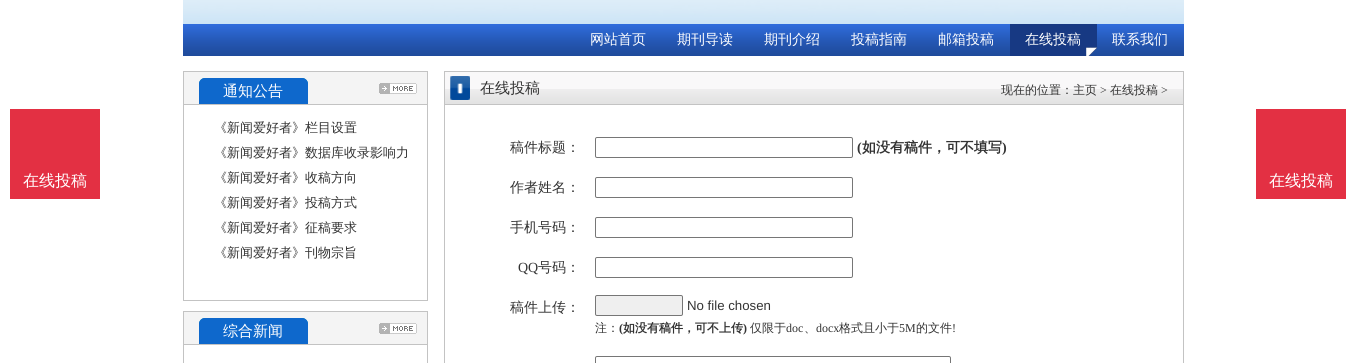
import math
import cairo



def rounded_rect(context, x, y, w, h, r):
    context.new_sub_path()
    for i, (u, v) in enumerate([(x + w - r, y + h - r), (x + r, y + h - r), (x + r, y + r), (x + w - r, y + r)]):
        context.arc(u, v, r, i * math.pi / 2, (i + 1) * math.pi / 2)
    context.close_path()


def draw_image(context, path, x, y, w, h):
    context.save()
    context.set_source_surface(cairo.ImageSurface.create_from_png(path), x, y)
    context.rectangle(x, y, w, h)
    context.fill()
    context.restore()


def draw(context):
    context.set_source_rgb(1, 1, 1)
    context.paint()
    context.set_source_rgb(227 / 255, 48 / 255, 67 / 255)
    context.rectangle(10, 109, 90, 90)
    context.fill()
    draw_image(context, "images/1.png", 183, 0, 1001, 24)
    draw_image(context, "images/2.png", 183, 24, 1001, 32)
    draw_image(context, "images/3.png", 1010, 24, 87, 32)
    context.set_source_rgb(244 / 255, 244 / 255, 244 / 255)
    context.rectangle(183.5, 71.5, 244, 33)
    context.fill_preserve()
    context.set_source_rgb(195 / 255, 195 / 255, 195 / 255)
    context.set_line_width(1)
    context.stroke()
    draw_image(context, "images/4.png", 199, 78, 109, 26)
    draw_image(context, "images/5.png", 379, 83, 38, 11)
    context.rectangle(427, 105, 1, 196)
    context.fill()
    context.rectangle(183, 300, 245, 1)
    context.fill()
    context.rectangle(183, 105, 1, 196)
    context.fill()
    context.set_source_rgb(244 / 255, 244 / 255, 244 / 255)
    context.rectangle(183.5, 311.5, 244, 33)
    context.fill_preserve()
    context.set_source_rgb(195 / 255, 195 / 255, 195 / 255)
    context.stroke()
    draw_image(context, "images/4.png", 199, 318, 109, 26)
    draw_image(context, "images/5.png", 379, 323, 38, 11)
    context.rectangle(427, 345, 1, 18)
    context.fill()
    context.rectangle(183, 345, 1, 18)
    context.fill()
    draw_image(context, "images/6.png", 445, 72, 738, 32)
    context.rectangle(444.5, 71.5, 739, 33)
    context.stroke()
    draw_image(context, "images/7.png", 450, 76, 20, 24)
    context.rectangle(1183, 105, 1, 258)
    context.fill()
    context.rectangle(444, 105, 1, 258)
    context.fill()
    rounded_rect(context, 595.5, 137.5, 257, 20, 1.5)
    context.set_source_rgb(118 / 255, 118 / 255, 118 / 255)
    context.stroke()
    rounded_rect(context, 595.5, 177.5, 257, 20, 1.5)
    context.stroke()
    rounded_rect(context, 595.5, 217.5, 257, 20, 1.5)
    context.stroke()
    rounded_rect(context, 595.5, 257.5, 257, 20, 1.5)
    context.stroke()
    context.set_source_rgb(239 / 255, 239 / 255, 239 / 255)
    rounded_rect(context, 595.5, 295.5, 87, 20, 1.5)
    context.fill_preserve()
    context.set_source_rgb(118 / 255, 118 / 255, 118 / 255)
    context.stroke()
    rounded_rect(context, 595.5, 356.5, 355, 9, 1.5)
    context.stroke()
    context.set_source_rgb(227 / 255, 48 / 255, 67 / 255)
    context.rectangle(1256, 109, 90, 90)
    context.fill()
    context.select_font_face("WenQuanYi Zen Hei Medium")
    context.set_font_size(16)
    context.set_source_rgb(1, 1, 1)
    context.move_to(23, 186)
    context.show_text("在线投稿")
    context.set_font_size(14)
    context.move_to(590, 44)
    context.show_text("网站首页")
    context.move_to(677, 44)
    context.show_text("期刊导读")
    context.move_to(764, 44)
    context.show_text("期刊介绍")
    context.move_to(851, 44)
    context.show_text("投稿指南")
    context.move_to(938, 44)
    context.show_text("邮箱投稿")
    context.move_to(1025, 44)
    context.show_text("在线投稿")
    context.move_to(1112, 44)
    context.show_text("联系我们")
    context.set_font_size(15)
    context.move_to(223, 96)
    context.show_text("通知公告")
    context.set_font_size(13)
    context.set_source_rgb(51 / 255, 51 / 255, 51 / 255)
    context.move_to(214, 132)
    context.show_text("《新闻爱好者》栏目设置")
    context.move_to(214, 157)
    context.show_text("《新闻爱好者》数据库收录影响力")
    context.move_to(214, 182)
    context.show_text("《新闻爱好者》收稿方向")
    context.move_to(214, 207)
    context.show_text("《新闻爱好者》投稿方式")
    context.move_to(214, 232)
    context.show_text("《新闻爱好者》征稿要求")
    context.move_to(214, 257)
    context.show_text("《新闻爱好者》刊物宗旨")
    context.set_font_size(15)
    context.set_source_rgb(1, 1, 1)
    context.move_to(223, 336)
    context.show_text("综合新闻")
    context.set_source_rgb(51 / 255, 51 / 255, 51 / 255)
    context.move_to(480, 93)
    context.show_text("在线投稿")
    context.set_font_size(12)
    context.move_to(1001, 94)
    context.show_text("现在的位置：主页")
    context.select_font_face("Liberation Serif")
    context.move_to(1100, 94)
    context.show_text(">")
    context.select_font_face("WenQuanYi Zen Hei Medium")
    context.move_to(1110, 94)
    context.show_text("在线投稿")
    context.select_font_face("Liberation Serif")
    context.move_to(1161, 94)
    context.show_text(">")
    context.select_font_face("WenQuanYi Zen Hei Medium")
    context.set_font_size(14)
    context.move_to(510, 152)
    context.show_text("稿件标题：")
    context.select_font_face("Liberation Serif", cairo.FontSlant.NORMAL, cairo.FontWeight.BOLD)
    context.move_to(857, 152)
    context.show_text("(")
    context.select_font_face("WenQuanYi Zen Hei", cairo.FontSlant.NORMAL, cairo.FontWeight.BOLD)
    context.move_to(862, 152)
    context.show_text("如没有稿件，可不填写")
    context.select_font_face("Liberation Serif", cairo.FontSlant.NORMAL, cairo.FontWeight.BOLD)
    context.move_to(1002, 152)
    context.show_text(")")
    context.select_font_face("WenQuanYi Zen Hei Medium")
    context.move_to(510, 192)
    context.show_text("作者姓名：")
    context.move_to(510, 232)
    context.show_text("手机号码：")
    context.select_font_face("Liberation Serif")
    context.move_to(518, 272)
    context.show_text("QQ")
    context.select_font_face("WenQuanYi Zen Hei Medium")
    context.move_to(538, 272)
    context.show_text("号码：")
    context.move_to(510, 312)
    context.show_text("稿件上传：")
    context.select_font_face("Liberation Sans")
    context.set_font_size(13.25)
    context.move_to(687, 310)
    context.show_text("No file chosen")
    context.select_font_face("WenQuanYi Zen Hei Medium")
    context.set_font_size(12)
    context.move_to(595, 332)
    context.show_text("注：")
    context.select_font_face("Liberation Serif", cairo.FontSlant.NORMAL, cairo.FontWeight.BOLD)
    context.move_to(619, 332)
    context.show_text("(")
    context.select_font_face("WenQuanYi Zen Hei", cairo.FontSlant.NORMAL, cairo.FontWeight.BOLD)
    context.move_to(623, 332)
    context.show_text("如没有稿件，可不上传")
    context.select_font_face("Liberation Serif", cairo.FontSlant.NORMAL, cairo.FontWeight.BOLD)
    context.move_to(743, 332)
    context.show_text(")")
    context.select_font_face("WenQuanYi Zen Hei Medium")
    context.move_to(750, 332)
    context.show_text("仅限于")
    context.select_font_face("Liberation Serif")
    context.move_to(786, 332)
    context.show_text("doc")
    context.select_font_face("WenQuanYi Zen Hei Medium")
    context.move_to(804, 332)
    context.show_text("、")
    context.select_font_face("Liberation Serif")
    context.move_to(816, 332)
    context.show_text("docx")
    context.select_font_face("WenQuanYi Zen Hei Medium")
    context.move_to(839, 332)
    context.show_text("格式且小于")
    context.select_font_face("Liberation Serif")
    context.move_to(899, 332)
    context.show_text("5M")
    context.select_font_face("WenQuanYi Zen Hei Medium")
    context.move_to(916, 332)
    context.show_text("的文件")
    context.select_font_face("Liberation Serif")
    context.move_to(952, 332)
    context.show_text("!")
    context.select_font_face("WenQuanYi Zen Hei Medium")
    context.set_font_size(16)
    context.set_source_rgb(1, 1, 1)
    context.move_to(1269, 186)
    context.show_text("在线投稿")


surface = cairo.ImageSurface(cairo.Format.RGB24, 1366, 363)
context = cairo.Context(surface)
options = cairo.FontOptions()
options.set_hint_metrics(cairo.HintMetrics.OFF)
options.set_hint_style(cairo.HintStyle.NONE)
context.set_font_options(options)
context.set_miter_limit(4)
draw(context)
surface.write_to_png("out.png")
